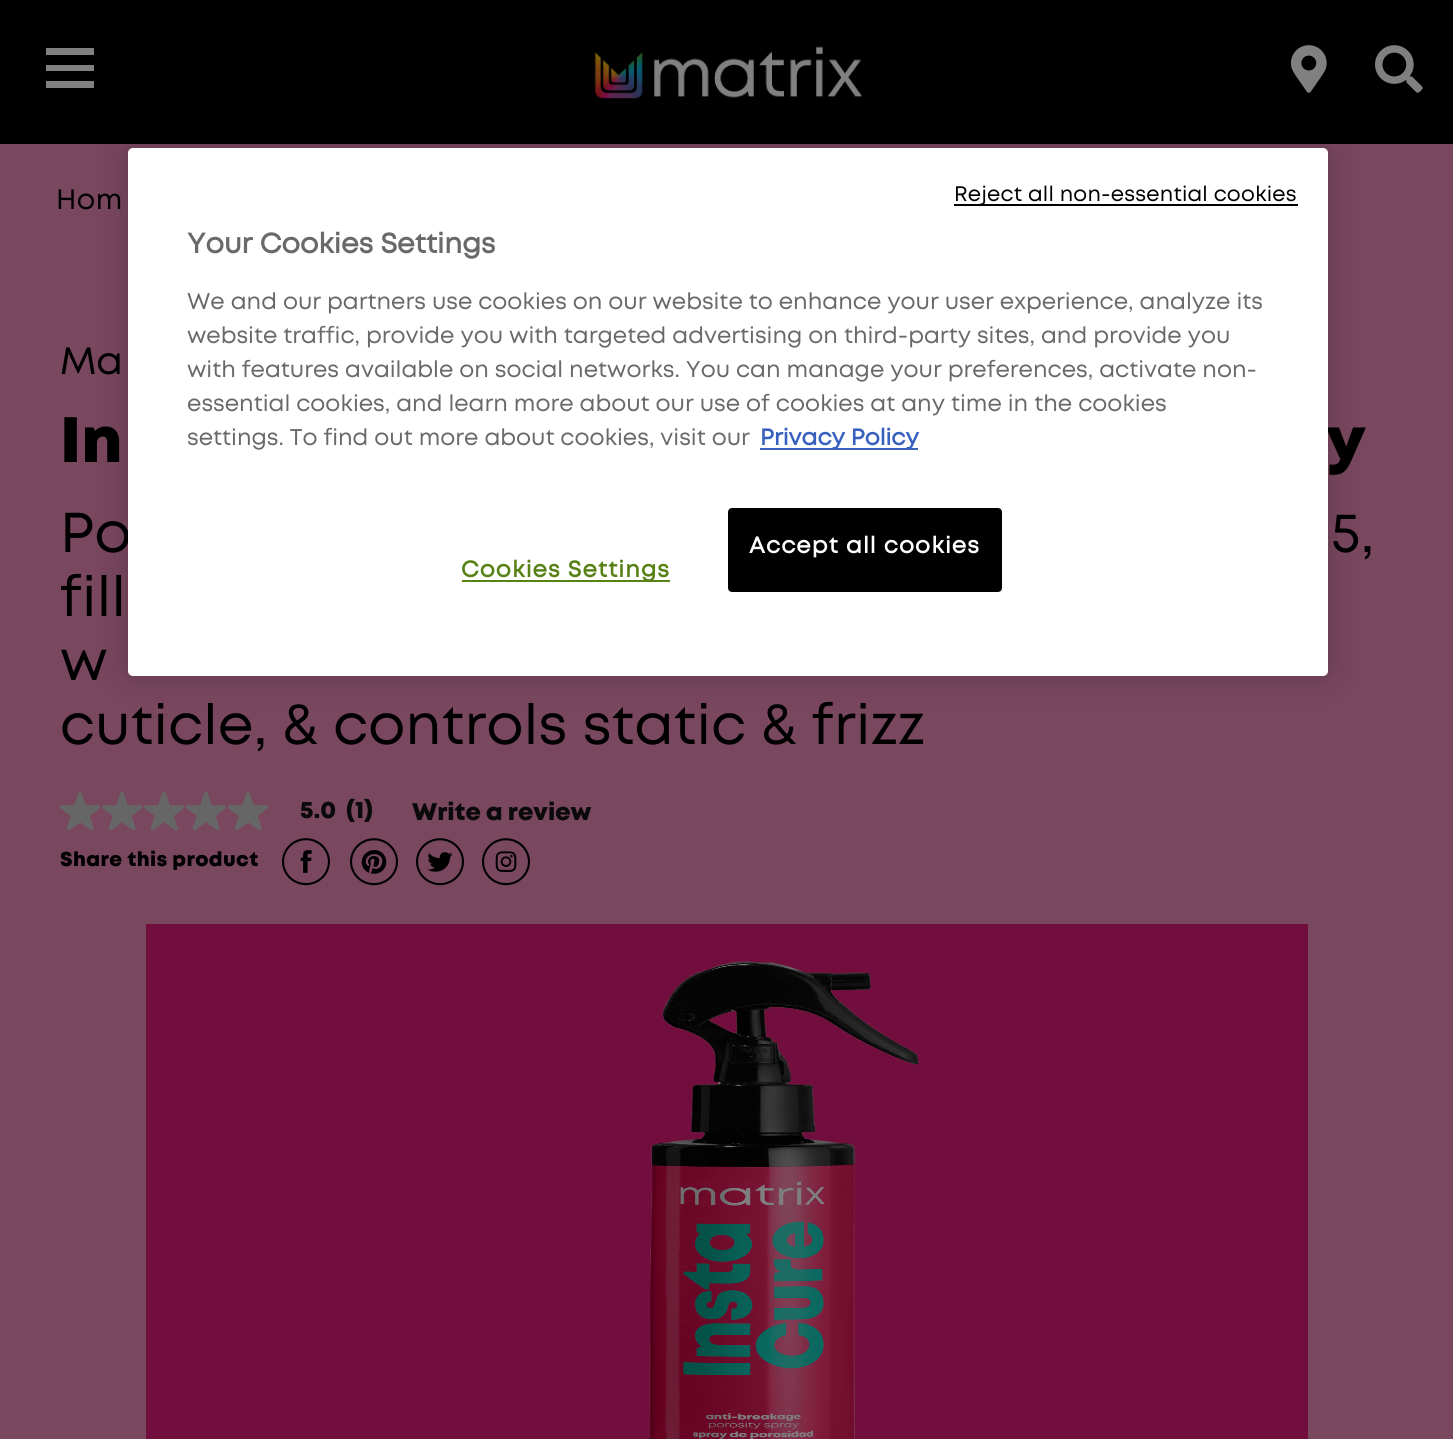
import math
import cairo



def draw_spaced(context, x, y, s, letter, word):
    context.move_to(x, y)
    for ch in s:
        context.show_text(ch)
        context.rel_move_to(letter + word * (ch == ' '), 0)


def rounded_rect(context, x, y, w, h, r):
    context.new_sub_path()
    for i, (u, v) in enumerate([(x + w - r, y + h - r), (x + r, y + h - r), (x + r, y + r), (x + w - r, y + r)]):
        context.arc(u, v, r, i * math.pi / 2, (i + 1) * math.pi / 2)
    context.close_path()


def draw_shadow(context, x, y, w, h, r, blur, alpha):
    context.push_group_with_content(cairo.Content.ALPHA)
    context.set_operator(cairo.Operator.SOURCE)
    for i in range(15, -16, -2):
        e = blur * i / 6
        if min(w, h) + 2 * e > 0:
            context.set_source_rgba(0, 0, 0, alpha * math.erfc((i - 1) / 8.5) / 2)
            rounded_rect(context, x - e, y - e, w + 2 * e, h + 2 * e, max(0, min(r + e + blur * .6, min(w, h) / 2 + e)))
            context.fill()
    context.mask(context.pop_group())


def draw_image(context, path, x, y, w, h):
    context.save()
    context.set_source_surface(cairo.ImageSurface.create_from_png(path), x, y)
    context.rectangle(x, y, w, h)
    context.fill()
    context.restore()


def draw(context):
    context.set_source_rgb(121 / 255, 71 / 255, 94 / 255)
    context.paint()
    context.set_source_rgb(0, 0, 0)
    context.rectangle(0, 0, 1453, 144)
    context.fill()
    draw_image(context, "images/1.png", 594, 46, 269, 53)
    context.set_source_rgb(0, 0, 0)
    draw_shadow(context, 128, 148, 1200, 528, 5, 18, 0.2)
    context.set_source_rgb(128 / 255, 128 / 255, 128 / 255)
    context.new_path()
    context.move_to(46, 65)
    context.line_to(94, 65)
    context.line_to(94, 71)
    context.line_to(46, 71)
    context.close_path()
    context.move_to(46, 48)
    context.line_to(94, 48)
    context.line_to(94, 55)
    context.line_to(46, 55)
    context.close_path()
    context.move_to(46, 81)
    context.line_to(94, 81)
    context.line_to(94, 88)
    context.line_to(46, 88)
    context.close_path()
    context.fill()
    draw_image(context, "images/2.png", 1290, 45, 37, 48)
    draw_image(context, "images/3.png", 1375, 45, 48, 48)
    draw_image(context, "images/4.png", 60, 792, 40, 39)
    draw_image(context, "images/4.png", 102, 792, 40, 39)
    draw_image(context, "images/4.png", 144, 792, 40, 39)
    draw_image(context, "images/4.png", 186, 792, 40, 39)
    draw_image(context, "images/4.png", 228, 792, 40, 39)
    draw_image(context, "images/5.png", 282, 838, 48, 48)
    draw_image(context, "images/6.png", 350, 838, 48, 48)
    draw_image(context, "images/7.png", 416, 838, 48, 48)
    draw_image(context, "images/8.png", 482, 838, 48, 48)
    context.set_source_rgb(114 / 255, 14 / 255, 61 / 255)
    context.rectangle(146, 924, 1162, 515)
    context.fill()
    draw_image(context, "images/9.png", 649, 961, 270, 478)
    context.select_font_face("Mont")
    context.set_font_size(28)
    context.set_source_rgb(0, 0, 0)
    draw_spaced(context, 56, 209, "Hom", 0.4, 0)
    context.set_font_size(38)
    context.move_to(60, 374)
    context.show_text("Ma")
    context.select_font_face("Mont Black")
    context.set_font_size(64)
    context.move_to(60, 462)
    context.show_text("In")
    context.move_to(1326, 462)
    context.show_text("y")
    context.select_font_face("Mont")
    context.set_font_size(56)
    draw_spaced(context, 60, 552, "Po", 0.4, 0)
    context.set_source_rgb(1, 1, 1)
    rounded_rect(context, 128, 148, 1200, 528, 5)
    context.fill()
    context.set_source_rgb(0, 0, 0)
    context.rectangle(954, 204, 344, 2)
    context.fill()
    context.set_font_size(21)
    draw_spaced(context, 954, 201, "Reject all non-essential cookies", 0.2, 0)
    context.set_source_rgb(87 / 255, 129 / 255, 20 / 255)
    context.rectangle(462, 580, 208, 2)
    context.fill()
    context.select_font_face("Mont", cairo.FontSlant.NORMAL, cairo.FontWeight.BOLD)
    context.set_font_size(22.75)
    draw_spaced(context, 461, 577, "Cookies Settings", 1.1, 0)
    context.set_source_rgb(0, 0, 0)
    rounded_rect(context, 729, 509, 272, 82, 3)
    context.fill_preserve()
    context.stroke()
    context.set_source_rgb(1, 1, 1)
    draw_spaced(context, 749, 553, "Accept all cookies", 1.1, 0)
    context.set_source_rgb(56 / 255, 96 / 255, 190 / 255)
    context.rectangle(760, 448, 158, 2)
    context.fill()
    context.move_to(760, 445)
    context.show_text("Privacy Policy")
    context.select_font_face("Mont")
    context.set_source_rgb(105 / 255, 105 / 255, 105 / 255)
    context.move_to(187, 445)
    context.show_text("settings. To find out more about cookies, visit our")
    context.move_to(187, 411)
    context.show_text("essential cookies, and learn more about our use of cookies at any time in the cookies")
    context.move_to(187, 377)
    context.show_text("with features available on social networks. You can manage your preferences, activate non-")
    context.move_to(187, 343)
    context.show_text("website traffic, provide you with targeted advertising on third-party sites, and provide you")
    context.move_to(187, 309)
    context.show_text("We and our partners use cookies on our website to enhance your user experience, analyze its")
    context.select_font_face("Mont", cairo.FontSlant.NORMAL, cairo.FontWeight.BOLD)
    context.set_font_size(28)
    context.move_to(187, 253)
    context.show_text("Your Cookies Settings")
    context.select_font_face("Mont")
    context.set_font_size(56)
    context.set_source_rgb(0, 0, 0)
    draw_spaced(context, 1331, 552, "5,", 0.4, 0)
    draw_spaced(context, 60, 616, "fill", 0.4, 0)
    draw_spaced(context, 60, 680, "w", 0.4, 0)
    draw_spaced(context, 60, 744, "cuticle, & controls static & frizz", 0.4, 0)
    context.select_font_face("Mont Black")
    context.set_font_size(24)
    context.set_source_rgb(10 / 255, 10 / 255, 10 / 255)
    context.move_to(300, 818)
    context.show_text("5.0")
    context.move_to(346, 818)
    context.show_text("(1)")
    context.move_to(412, 820)
    context.show_text("Write a review")
    context.set_font_size(20)
    context.set_source_rgb(0, 0, 0)
    draw_spaced(context, 60, 866, "Share this product", 0.4, 0)


surface = cairo.ImageSurface(cairo.Format.RGB24, 1453, 1439)
context = cairo.Context(surface)
options = cairo.FontOptions()
options.set_hint_metrics(cairo.HintMetrics.OFF)
options.set_hint_style(cairo.HintStyle.NONE)
context.set_font_options(options)
context.set_miter_limit(4)
draw(context)
surface.write_to_png("out.png")
